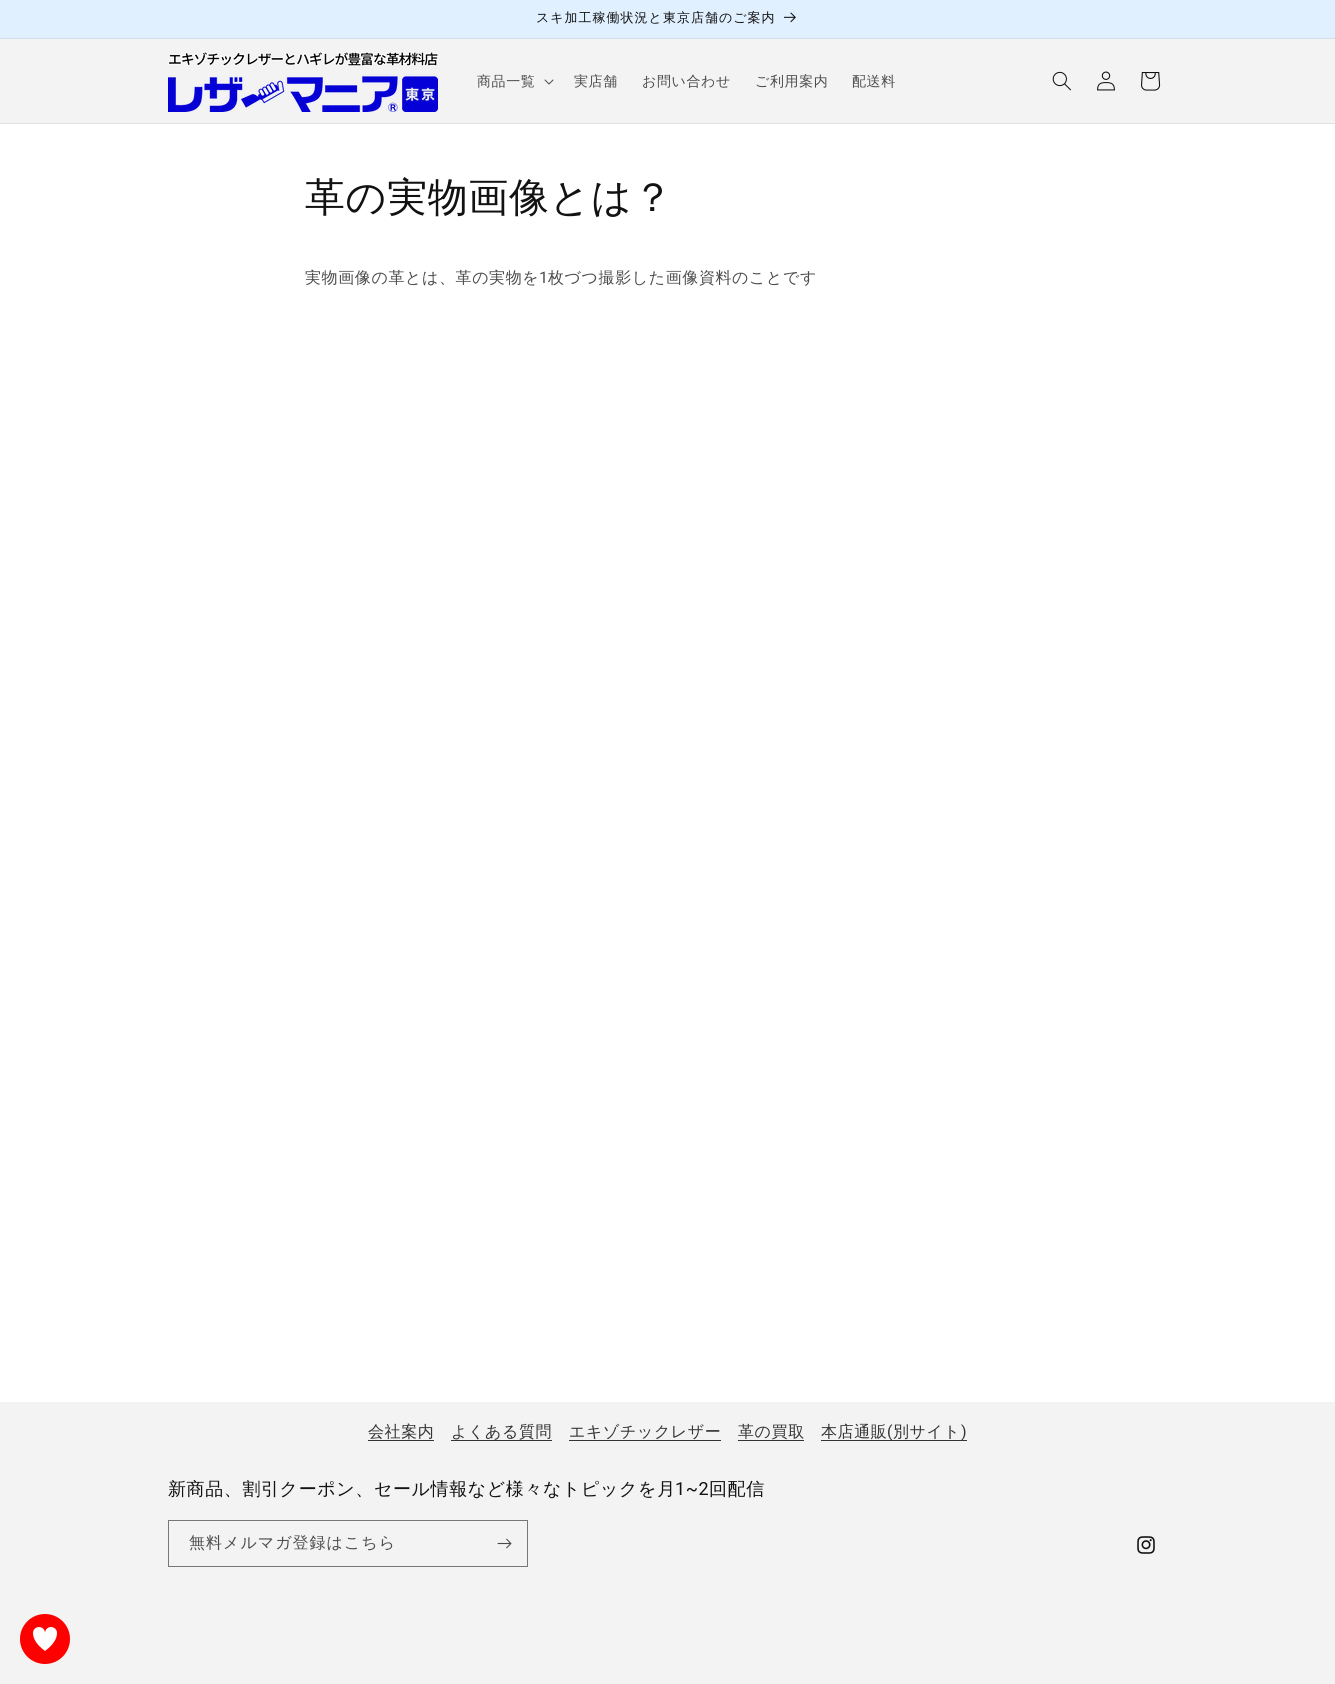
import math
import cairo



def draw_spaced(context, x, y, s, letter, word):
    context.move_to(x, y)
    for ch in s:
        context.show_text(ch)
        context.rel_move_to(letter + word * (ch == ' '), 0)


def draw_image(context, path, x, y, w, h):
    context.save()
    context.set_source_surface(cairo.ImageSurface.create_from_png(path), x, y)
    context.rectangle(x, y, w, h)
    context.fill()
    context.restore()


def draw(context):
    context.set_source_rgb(1, 1, 1)
    context.paint()
    context.set_source_rgb(225 / 255, 240 / 255, 1)
    context.rectangle(0, 0, 1335, 38)
    context.fill()
    context.set_source_rgb(208 / 255, 222 / 255, 236 / 255)
    context.rectangle(0, 38, 1335, 1)
    context.fill()
    draw_image(context, "images/1.png", 784, 12, 12, 11)
    context.set_source_rgb(243 / 255, 243 / 255, 243 / 255)
    context.rectangle(0, 39, 1335, 84)
    context.fill()
    context.set_source_rgb(225 / 255, 225 / 255, 225 / 255)
    context.rectangle(0, 123, 1335, 1)
    context.fill()
    draw_image(context, "images/2.png", 168, 51, 270, 61)
    draw_image(context, "images/3.png", 544, 79, 10, 6)
    draw_image(context, "images/4.png", 1052, 71, 19, 20)
    draw_image(context, "images/5.png", 1097, 71, 18, 20)
    draw_image(context, "images/6.png", 1141, 72, 20, 19)
    context.set_source_rgb(243 / 255, 243 / 255, 243 / 255)
    context.rectangle(0, 1402, 1335, 282)
    context.fill()
    context.set_source_rgb(52 / 255, 52 / 255, 52 / 255)
    context.rectangle(368, 1440, 66, 1)
    context.fill()
    context.rectangle(451, 1440, 101, 1)
    context.fill()
    context.rectangle(569, 1440, 152, 1)
    context.fill()
    context.rectangle(738, 1440, 66, 1)
    context.fill()
    context.rectangle(821, 1440, 146, 1)
    context.fill()
    context.rectangle(168.5, 1520.5, 359, 46)
    context.set_source_rgb(119 / 255, 119 / 255, 119 / 255)
    context.set_line_width(1)
    context.stroke()
    draw_image(context, "images/7.png", 497, 1538, 15, 11)
    draw_image(context, "images/8.png", 1137, 1536, 18, 18)
    context.set_source_rgb(1, 0, 0)
    context.arc(45, 1639, 25, 0, 2 * math.pi)
    context.fill()
    draw_image(context, "images/9.png", 33, 1627, 24, 24)
    context.select_font_face("WenQuanYi Zen Hei Medium")
    context.set_font_size(13)
    context.set_source_rgb(18 / 255, 18 / 255, 18 / 255)
    draw_spaced(context, 536, 22, "スキ加工稼働状況と東京店舗のご案内", 1, 0)
    context.set_font_size(14)
    context.set_source_rgb(77 / 255, 77 / 255, 77 / 255)
    draw_spaced(context, 477, 86, "商品一覧", 0.6, 0)
    draw_spaced(context, 574, 86, "実店舗", 0.6, 0)
    draw_spaced(context, 642, 86, "お問い合わせ", 0.6, 0)
    draw_spaced(context, 755, 86, "ご利用案内", 0.6, 0)
    draw_spaced(context, 852, 86, "配送料", 0.6, 0)
    context.set_font_size(40)
    context.set_source_rgb(18 / 255, 18 / 255, 18 / 255)
    draw_spaced(context, 305, 211, "革の実物画像とは？", 0.6, 0)
    context.set_font_size(16)
    context.set_source_rgb(77 / 255, 77 / 255, 77 / 255)
    draw_spaced(context, 305, 283, "実物画像の革とは、革の実物を", 0.6, 0)
    context.select_font_face("Roboto")
    draw_spaced(context, 539, 283, "1", 0.6, 0)
    context.select_font_face("WenQuanYi Zen Hei Medium")
    draw_spaced(context, 548, 283, "枚づつ撮影した画像資料のことです", 0.6, 0)
    context.set_source_rgb(52 / 255, 52 / 255, 52 / 255)
    draw_spaced(context, 368, 1437, "会社案内", 0.6, 0)
    draw_spaced(context, 451, 1437, "よくある質問", 0.6, 0)
    draw_spaced(context, 569, 1437, "エキゾチックレザー", 0.6, 0)
    draw_spaced(context, 738, 1437, "革の買取", 0.6, 0)
    draw_spaced(context, 821, 1437, "本店通販", 0.6, 0)
    context.select_font_face("Roboto")
    draw_spaced(context, 887, 1437, "(", 0.6, 0)
    context.select_font_face("WenQuanYi Zen Hei Medium")
    draw_spaced(context, 893, 1437, "別サイト", 0.6, 0)
    context.select_font_face("Roboto")
    draw_spaced(context, 961, 1437, ")", 0.6, 0)
    context.select_font_face("WenQuanYi Zen Hei Medium")
    context.set_font_size(18)
    context.set_source_rgb(18 / 255, 18 / 255, 18 / 255)
    draw_spaced(context, 168, 1495, "新商品、割引クーポン、セール情報など様々なトピックを月", 0.6, 0)
    context.select_font_face("Roboto")
    draw_spaced(context, 675, 1495, "1~2", 0.6, 0)
    context.select_font_face("WenQuanYi Zen Hei Medium")
    draw_spaced(context, 709, 1495, "回配信", 0.6, 0)
    context.set_font_size(16)
    context.set_source_rgb(77 / 255, 77 / 255, 77 / 255)
    draw_spaced(context, 189, 1548, "無料メルマガ登録はこちら", 1, 0)


surface = cairo.ImageSurface(cairo.Format.RGB24, 1335, 1684)
context = cairo.Context(surface)
options = cairo.FontOptions()
options.set_hint_metrics(cairo.HintMetrics.OFF)
options.set_hint_style(cairo.HintStyle.NONE)
context.set_font_options(options)
context.set_miter_limit(4)
draw(context)
surface.write_to_png("out.png")
